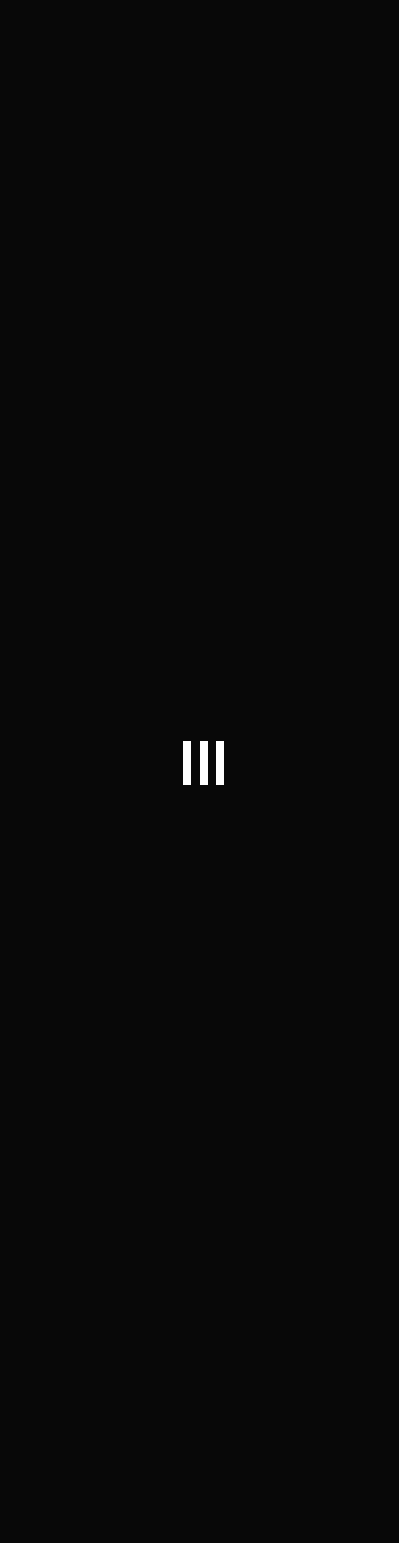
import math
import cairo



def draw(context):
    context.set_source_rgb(8 / 255, 8 / 255, 8 / 255)
    context.paint()
    context.set_source_rgb(1, 1, 1)
    context.rectangle(200, 741, 8, 44)
    context.fill()
    context.rectangle(183, 741, 8, 44)
    context.fill()
    context.rectangle(216, 741, 8, 44)
    context.fill()


surface = cairo.ImageSurface(cairo.Format.RGB24, 399, 1543)
context = cairo.Context(surface)
options = cairo.FontOptions()
options.set_hint_metrics(cairo.HintMetrics.OFF)
options.set_hint_style(cairo.HintStyle.NONE)
context.set_font_options(options)
context.set_miter_limit(4)
draw(context)
surface.write_to_png("out.png")
